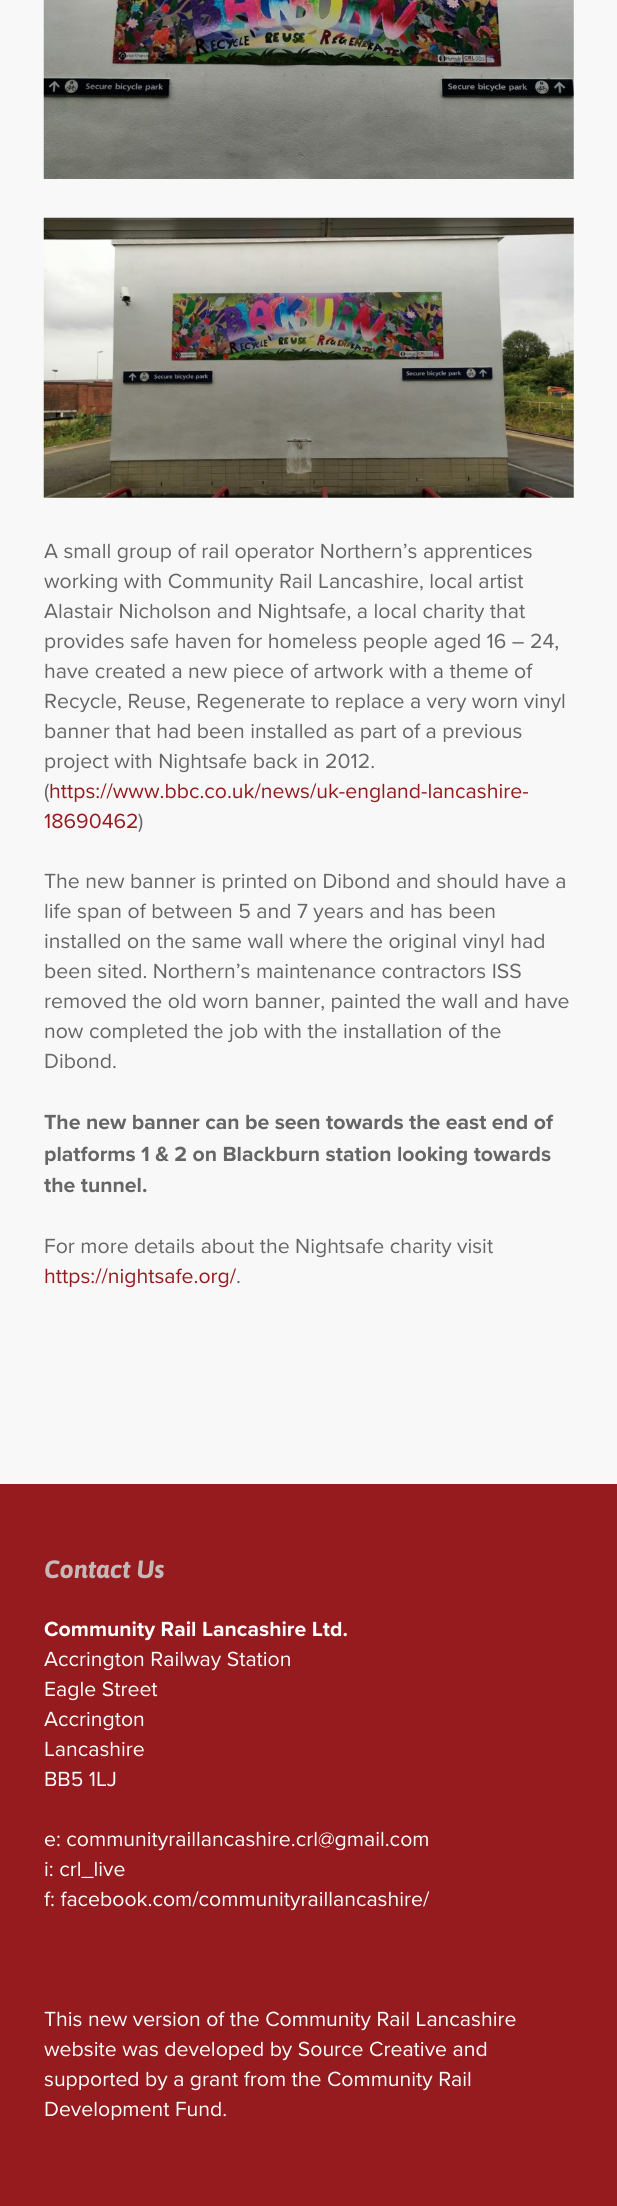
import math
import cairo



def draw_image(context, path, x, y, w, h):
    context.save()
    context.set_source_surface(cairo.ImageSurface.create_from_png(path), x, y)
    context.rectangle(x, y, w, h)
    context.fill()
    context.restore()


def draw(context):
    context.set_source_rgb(248 / 255, 248 / 255, 248 / 255)
    context.paint()
    draw_image(context, "images/1.png", 43, 0, 531, 179)
    draw_image(context, "images/2.png", 43, 217, 531, 281)
    context.set_source_rgb(150 / 255, 27 / 255, 30 / 255)
    context.rectangle(0, 1484, 617, 722)
    context.fill()
    context.select_font_face("Proxima Nova")
    context.set_font_size(21.25)
    context.set_source_rgb(102 / 255, 102 / 255, 102 / 255)
    context.move_to(44, 558)
    context.show_text("A small group of rail operator Northern’s apprentices")
    context.move_to(44, 588)
    context.show_text("working with Community Rail Lancashire, local artist")
    context.move_to(44, 618)
    context.show_text("Alastair Nicholson and Nightsafe, a local charity that")
    context.move_to(44, 648)
    context.show_text("provides safe haven for homeless people aged 16 – 24,")
    context.move_to(44, 678)
    context.show_text("have created a new piece of artwork with a theme of")
    context.move_to(44, 708)
    context.show_text("Recycle, Reuse, Regenerate to replace a very worn vinyl")
    context.move_to(44, 738)
    context.show_text("banner that had been installed as part of a previous")
    context.move_to(44, 768)
    context.show_text("project with Nightsafe back in 2012.")
    context.move_to(44, 798)
    context.show_text("(")
    context.set_source_rgb(150 / 255, 27 / 255, 30 / 255)
    context.move_to(49, 798)
    context.show_text("https://www.bbc.co.uk/news/uk-england-lancashire-")
    context.move_to(44, 828)
    context.show_text("18690462")
    context.set_source_rgb(102 / 255, 102 / 255, 102 / 255)
    context.move_to(138, 828)
    context.show_text(")")
    context.move_to(44, 888)
    context.show_text("The new banner is printed on Dibond and should have a")
    context.move_to(44, 918)
    context.show_text("life span of between 5 and 7 years and has been")
    context.move_to(44, 948)
    context.show_text("installed on the same wall where the original vinyl had")
    context.move_to(44, 978)
    context.show_text("been sited. Northern’s maintenance contractors ISS")
    context.move_to(44, 1008)
    context.show_text("removed the old worn banner, painted the wall and have")
    context.move_to(44, 1038)
    context.show_text("now completed the job with the installation of the")
    context.move_to(44, 1068)
    context.show_text("Dibond.")
    context.select_font_face("Proxima Nova", cairo.FontSlant.NORMAL, cairo.FontWeight.BOLD)
    context.move_to(44, 1129)
    context.show_text("The new banner can be seen towards the east end of")
    context.move_to(44, 1161)
    context.show_text("platforms 1 & 2 on Blackburn station looking towards")
    context.move_to(44, 1192)
    context.show_text("the tunnel.")
    context.select_font_face("Proxima Nova")
    context.move_to(44, 1253)
    context.show_text("For more details about the Nightsafe charity visit")
    context.set_source_rgb(150 / 255, 27 / 255, 30 / 255)
    context.move_to(44, 1283)
    context.show_text("https://nightsafe.org/")
    context.set_source_rgb(102 / 255, 102 / 255, 102 / 255)
    context.move_to(236, 1283)
    context.show_text(".")
    context.select_font_face("Asap", cairo.FontSlant.ITALIC, cairo.FontWeight.BOLD)
    context.set_font_size(25)
    context.set_source_rgb(197 / 255, 184 / 255, 185 / 255)
    context.move_to(44, 1578)
    context.show_text("Contact Us")
    context.select_font_face("Proxima Nova", cairo.FontSlant.NORMAL, cairo.FontWeight.BOLD)
    context.set_font_size(21.25)
    context.set_source_rgb(1, 1, 1)
    context.move_to(44, 1636)
    context.show_text("Community Rail Lancashire Ltd.")
    context.select_font_face("Proxima Nova")
    context.move_to(44, 1666)
    context.show_text("Accrington Railway Station")
    context.move_to(44, 1696)
    context.show_text("Eagle Street")
    context.move_to(44, 1726)
    context.show_text("Accrington")
    context.move_to(44, 1756)
    context.show_text("Lancashire")
    context.move_to(44, 1786)
    context.show_text("BB5 1LJ")
    context.move_to(44, 1846)
    context.show_text("e: communityraillancashire.crl@gmail.com")
    context.move_to(44, 1876)
    context.show_text("i: crl_live")
    context.move_to(44, 1906)
    context.show_text("f: facebook.com/communityraillancashire/")
    context.move_to(44, 2026)
    context.show_text("This new version of the Community Rail Lancashire")
    context.move_to(44, 2056)
    context.show_text("website was developed by Source Creative and")
    context.move_to(44, 2086)
    context.show_text("supported by a grant from the Community Rail")
    context.move_to(44, 2116)
    context.show_text("Development Fund.")


surface = cairo.ImageSurface(cairo.Format.RGB24, 617, 2206)
context = cairo.Context(surface)
options = cairo.FontOptions()
options.set_hint_metrics(cairo.HintMetrics.OFF)
options.set_hint_style(cairo.HintStyle.NONE)
context.set_font_options(options)
context.set_miter_limit(4)
draw(context)
surface.write_to_png("out.png")
